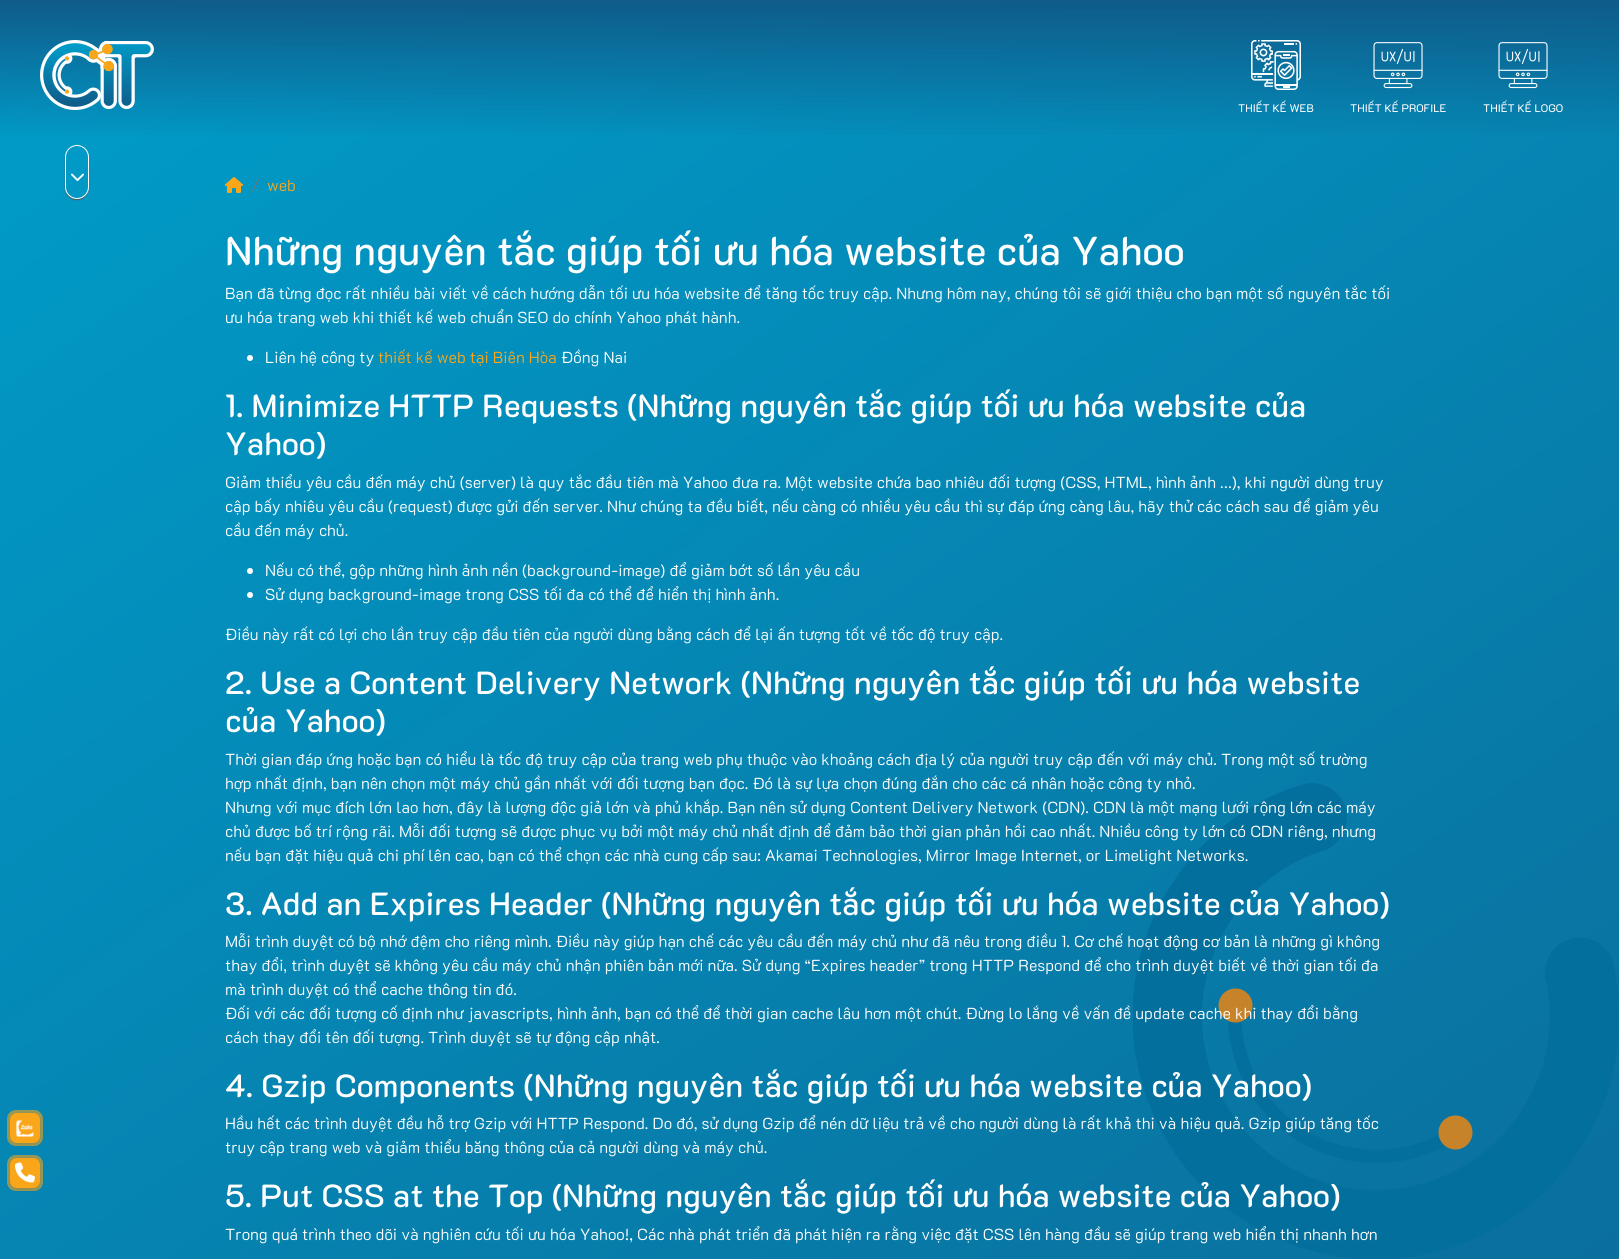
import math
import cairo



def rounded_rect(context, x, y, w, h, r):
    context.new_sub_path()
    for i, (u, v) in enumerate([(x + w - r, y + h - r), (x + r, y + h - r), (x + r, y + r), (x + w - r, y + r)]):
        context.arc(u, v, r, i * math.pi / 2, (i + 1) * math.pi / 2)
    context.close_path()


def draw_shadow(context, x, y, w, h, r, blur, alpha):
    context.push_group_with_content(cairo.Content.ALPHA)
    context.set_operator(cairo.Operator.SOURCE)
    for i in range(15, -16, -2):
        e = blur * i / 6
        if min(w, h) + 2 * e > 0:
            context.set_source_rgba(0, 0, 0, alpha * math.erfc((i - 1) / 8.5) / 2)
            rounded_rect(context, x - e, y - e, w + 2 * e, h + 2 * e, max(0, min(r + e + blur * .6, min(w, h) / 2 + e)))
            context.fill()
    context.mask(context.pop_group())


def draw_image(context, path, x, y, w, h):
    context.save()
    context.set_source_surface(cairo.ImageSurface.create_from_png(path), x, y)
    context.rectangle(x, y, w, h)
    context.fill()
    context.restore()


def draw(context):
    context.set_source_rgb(1, 1, 1)
    context.paint()
    gradient = cairo.LinearGradient(1614, 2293, 5.4, -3.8)
    gradient.add_color_stop_rgba(0, 15 / 255, 91 / 255, 137 / 255, 1)
    gradient.add_color_stop_rgba(1, 0, 157 / 255, 202 / 255, 1)
    context.set_source(gradient)
    context.rectangle(0, 1, 1619, 1258)
    context.fill()
    context.set_source_rgb(152 / 255, 154 / 255, 88 / 255)
    rounded_rect(context, 7, 1110, 36, 36, 9)
    context.fill()
    context.set_source_rgb(0, 0, 0)
    draw_shadow(context, 10, 1114, 30, 30, 7, 2.5, 0.1)
    context.set_source_rgb(250 / 255, 166 / 255, 26 / 255)
    rounded_rect(context, 10, 1113, 30, 30, 7)
    context.fill()
    draw_image(context, "images/1.png", 16, 1119, 18, 18)
    context.set_source_rgb(152 / 255, 153 / 255, 87 / 255)
    rounded_rect(context, 7, 1155, 36, 36, 9)
    context.fill()
    context.set_source_rgb(0, 0, 0)
    draw_shadow(context, 10, 1159, 30, 30, 7, 2.5, 0.1)
    context.set_source_rgb(250 / 255, 166 / 255, 26 / 255)
    rounded_rect(context, 10, 1158, 30, 30, 7)
    context.fill()
    draw_image(context, "images/2.png", 15, 1162, 20, 21)
    gradient = cairo.LinearGradient(810, 0, 810, 140)
    gradient.add_color_stop_rgba(0, 15 / 255, 91 / 255, 137 / 255, 1)
    gradient.add_color_stop_rgba(1, 15 / 255, 91 / 255, 137 / 255, 0)
    context.set_source(gradient)
    context.rectangle(0, 0, 1619, 135)
    context.fill()
    draw_image(context, "images/3.png", 40, 40, 114, 70)
    draw_image(context, "images/4.png", 1251, 40, 50, 50)
    draw_image(context, "images/5.png", 1373, 42, 50, 47)
    draw_image(context, "images/6.png", 1498, 42, 50, 47)
    draw_image(context, "images/7.png", 71, 173, 13, 8)
    context.save()
    context.set_fill_rule(cairo.FillRule.EVEN_ODD)
    context.new_path()
    context.move_to(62, 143)
    context.line_to(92, 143)
    context.line_to(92, 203)
    context.line_to(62, 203)
    context.close_path()
    context.move_to(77, 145)
    context.curve_to(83.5, 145, 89, 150.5, 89, 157)
    context.line_to(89, 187)
    context.curve_to(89, 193.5, 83.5, 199, 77, 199)
    context.curve_to(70.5, 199, 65, 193.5, 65, 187)
    context.line_to(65, 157)
    context.curve_to(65, 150.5, 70.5, 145, 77, 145)
    context.close_path()
    context.clip()
    context.set_source_rgb(85 / 255, 85 / 255, 85 / 255)
    draw_shadow(context, 65, 146, 24, 54, 12, 0.5, 1)
    context.restore()
    rounded_rect(context, 65.5, 145.5, 23, 53, 11.5)
    context.set_source_rgb(1, 1, 1)
    context.set_line_width(1)
    context.stroke()
    draw_image(context, "images/8.png", 225, 177, 18, 16)
    context.arc(250, 358, 3, 0, 2 * math.pi)
    context.fill()
    context.arc(250, 571, 3, 0, 2 * math.pi)
    context.fill()
    context.arc(250, 595, 3, 0, 2 * math.pi)
    context.fill()
    draw_image(context, "images/9.png", 1133, 783, 486, 476)
    context.select_font_face("K2D")
    context.set_font_size(11)
    context.move_to(1238, 112)
    context.show_text("THIẾT KẾ WEB")
    context.move_to(1350, 112)
    context.show_text("THIẾT KẾ PROFILE")
    context.move_to(1483, 112)
    context.show_text("THIẾT KẾ LOGO")
    context.select_font_face("K2D Light")
    context.set_font_size(16)
    context.set_source_rgb(108 / 255, 117 / 255, 125 / 255)
    context.move_to(251, 191)
    context.show_text("/")
    context.set_source_rgb(250 / 255, 166 / 255, 26 / 255)
    context.move_to(267, 191)
    context.show_text("web")
    context.select_font_face("K2D Medium")
    context.set_font_size(40)
    context.set_source_rgb(1, 1, 1)
    context.move_to(225, 265)
    context.show_text("Những nguyên tắc giúp tối ưu hóa website của Yahoo")
    context.select_font_face("K2D Light")
    context.set_font_size(16)
    context.move_to(225, 299)
    context.show_text("Bạn đã từng đọc rất nhiều bài viết về cách hướng dẫn tối ưu hóa website để tăng tốc truy cập. Nhưng hôm nay, chúng tôi sẽ giới thiệu cho bạn một số nguyên tắc tối")
    context.move_to(225, 323)
    context.show_text("ưu hóa trang web khi thiết kế web chuẩn SEO do chính Yahoo phát hành.")
    context.move_to(265, 363)
    context.show_text("Liên hệ công ty")
    context.set_source_rgb(250 / 255, 166 / 255, 26 / 255)
    context.move_to(378, 363)
    context.show_text("thiết kế web tại Biên Hòa")
    context.set_source_rgb(1, 1, 1)
    context.move_to(561, 363)
    context.show_text("Đồng Nai")
    context.select_font_face("K2D Medium")
    context.set_font_size(32)
    context.move_to(225, 417)
    context.show_text("1. Minimize HTTP Requests (Những nguyên tắc giúp tối ưu hóa website của")
    context.move_to(225, 455)
    context.show_text("Yahoo)")
    context.select_font_face("K2D Light")
    context.set_font_size(16)
    context.move_to(225, 488)
    context.show_text("Giảm thiểu yêu cầu đến máy chủ (server) là quy tắc đầu tiên mà Yahoo đưa ra. Một website chứa bao nhiêu đối tượng (CSS, HTML, hình ảnh …), khi người dùng truy")
    context.move_to(225, 512)
    context.show_text("cập bấy nhiêu yêu cầu (request) được gửi đến server. Như chúng ta đều biết, nếu càng có nhiều yêu cầu thì sự đáp ứng càng lâu, hãy thử các cách sau để giảm yêu")
    context.move_to(225, 536)
    context.show_text("cầu đến máy chủ.")
    context.move_to(265, 576)
    context.show_text("Nếu có thể, gộp những hình ảnh nền (background-image) để giảm bớt số lần yêu cầu")
    context.move_to(265, 600)
    context.show_text("Sử dụng background-image trong CSS tối đa có thể để hiển thị hình ảnh.")
    context.move_to(225, 640)
    context.show_text("Điều này rất có lợi cho lần truy cập đầu tiên của người dùng bằng cách để lại ấn tượng tốt về tốc độ truy cập.")
    context.select_font_face("K2D Medium")
    context.set_font_size(32)
    context.move_to(225, 694)
    context.show_text("2. Use a Content Delivery Network (Những nguyên tắc giúp tối ưu hóa website")
    context.move_to(225, 732)
    context.show_text("của Yahoo)")
    context.select_font_face("K2D Light")
    context.set_font_size(16)
    context.move_to(225, 765)
    context.show_text("Thời gian đáp ứng hoặc bạn có hiểu là tốc độ truy cập của trang web phụ thuộc vào khoảng cách địa lý của người truy cập đến với máy chủ. Trong một số trường")
    context.move_to(225, 789)
    context.show_text("hợp nhất định, bạn nên chọn một máy chủ gần nhất với đối tượng bạn đọc. Đó là sự lựa chọn đúng đắn cho các cá nhân hoặc công ty nhỏ.")
    context.move_to(225, 813)
    context.show_text("Nhưng với mục đích lớn lao hơn, đây là lượng độc giả lớn và phủ khắp. Bạn nên sử dụng Content Delivery Network (CDN). CDN là một mạng lưới rộng lớn các máy")
    context.move_to(225, 837)
    context.show_text("chủ được bố trí rộng rãi. Mỗi đối tượng sẽ được phục vụ bởi một máy chủ nhất định để đảm bảo thời gian phản hồi cao nhất. Nhiều công ty lớn có CDN riêng, nhưng")
    context.move_to(225, 861)
    context.show_text("nếu bạn đặt hiệu quả chi phí lên cao, bạn có thể chọn các nhà cung cấp sau: Akamai Technologies, Mirror Image Internet, or Limelight Networks.")
    context.select_font_face("K2D Medium")
    context.set_font_size(32)
    context.move_to(225, 915)
    context.show_text("3. Add an Expires Header (Những nguyên tắc giúp tối ưu hóa website của Yahoo)")
    context.select_font_face("K2D Light")
    context.set_font_size(16)
    context.move_to(225, 947)
    context.show_text("Mỗi trình duyệt có bộ nhớ đệm cho riêng mình. Điều này giúp hạn chế các yêu cầu đến máy chủ như đã nêu trong điều 1. Cơ chế hoạt động cơ bản là những gì không")
    context.move_to(225, 971)
    context.show_text("thay đổi, trình duyệt sẽ không yêu cầu máy chủ nhận phiên bản mới nữa. Sử dụng “Expires header” trong HTTP Respond để cho trình duyệt biết về thời gian tối đa")
    context.move_to(225, 995)
    context.show_text("mà trình duyệt có thể cache thông tin đó.")
    context.move_to(225, 1019)
    context.show_text("Đối với các đối tượng cố định như javascripts, hình ảnh, bạn có thể để thời gian cache lâu hơn một chút. Đừng lo lắng về vấn đề update cache khi thay đổi bằng")
    context.move_to(225, 1043)
    context.show_text("cách thay đổi tên đối tượng. Trình duyệt sẽ tự động cập nhật.")
    context.select_font_face("K2D Medium")
    context.set_font_size(32)
    context.move_to(225, 1097)
    context.show_text("4. Gzip Components (Những nguyên tắc giúp tối ưu hóa website của Yahoo)")
    context.select_font_face("K2D Light")
    context.set_font_size(16)
    context.move_to(225, 1129)
    context.show_text("Hầu hết các trình duyệt đều hỗ trợ Gzip với HTTP Respond. Do đó, sử dụng Gzip để nén dữ liệu trả về cho người dùng là rất khả thi và hiệu quả. Gzip giúp tăng tốc")
    context.move_to(225, 1153)
    context.show_text("truy cập trang web và giảm thiểu băng thông của cả người dùng và máy chủ.")
    context.select_font_face("K2D Medium")
    context.set_font_size(32)
    context.move_to(225, 1207)
    context.show_text("5. Put CSS at the Top (Những nguyên tắc giúp tối ưu hóa website của Yahoo)")
    context.select_font_face("K2D Light")
    context.set_font_size(16)
    context.move_to(225, 1240)
    context.show_text("Trong quá trình theo dõi và nghiên cứu tối ưu hóa Yahoo!, Các nhà phát triển đã phát hiện ra rằng việc đặt CSS lên hàng đầu sẽ giúp trang web hiển thị nhanh hơn")


surface = cairo.ImageSurface(cairo.Format.RGB24, 1619, 1259)
context = cairo.Context(surface)
options = cairo.FontOptions()
options.set_hint_metrics(cairo.HintMetrics.OFF)
options.set_hint_style(cairo.HintStyle.NONE)
context.set_font_options(options)
context.set_miter_limit(4)
draw(context)
surface.write_to_png("out.png")
